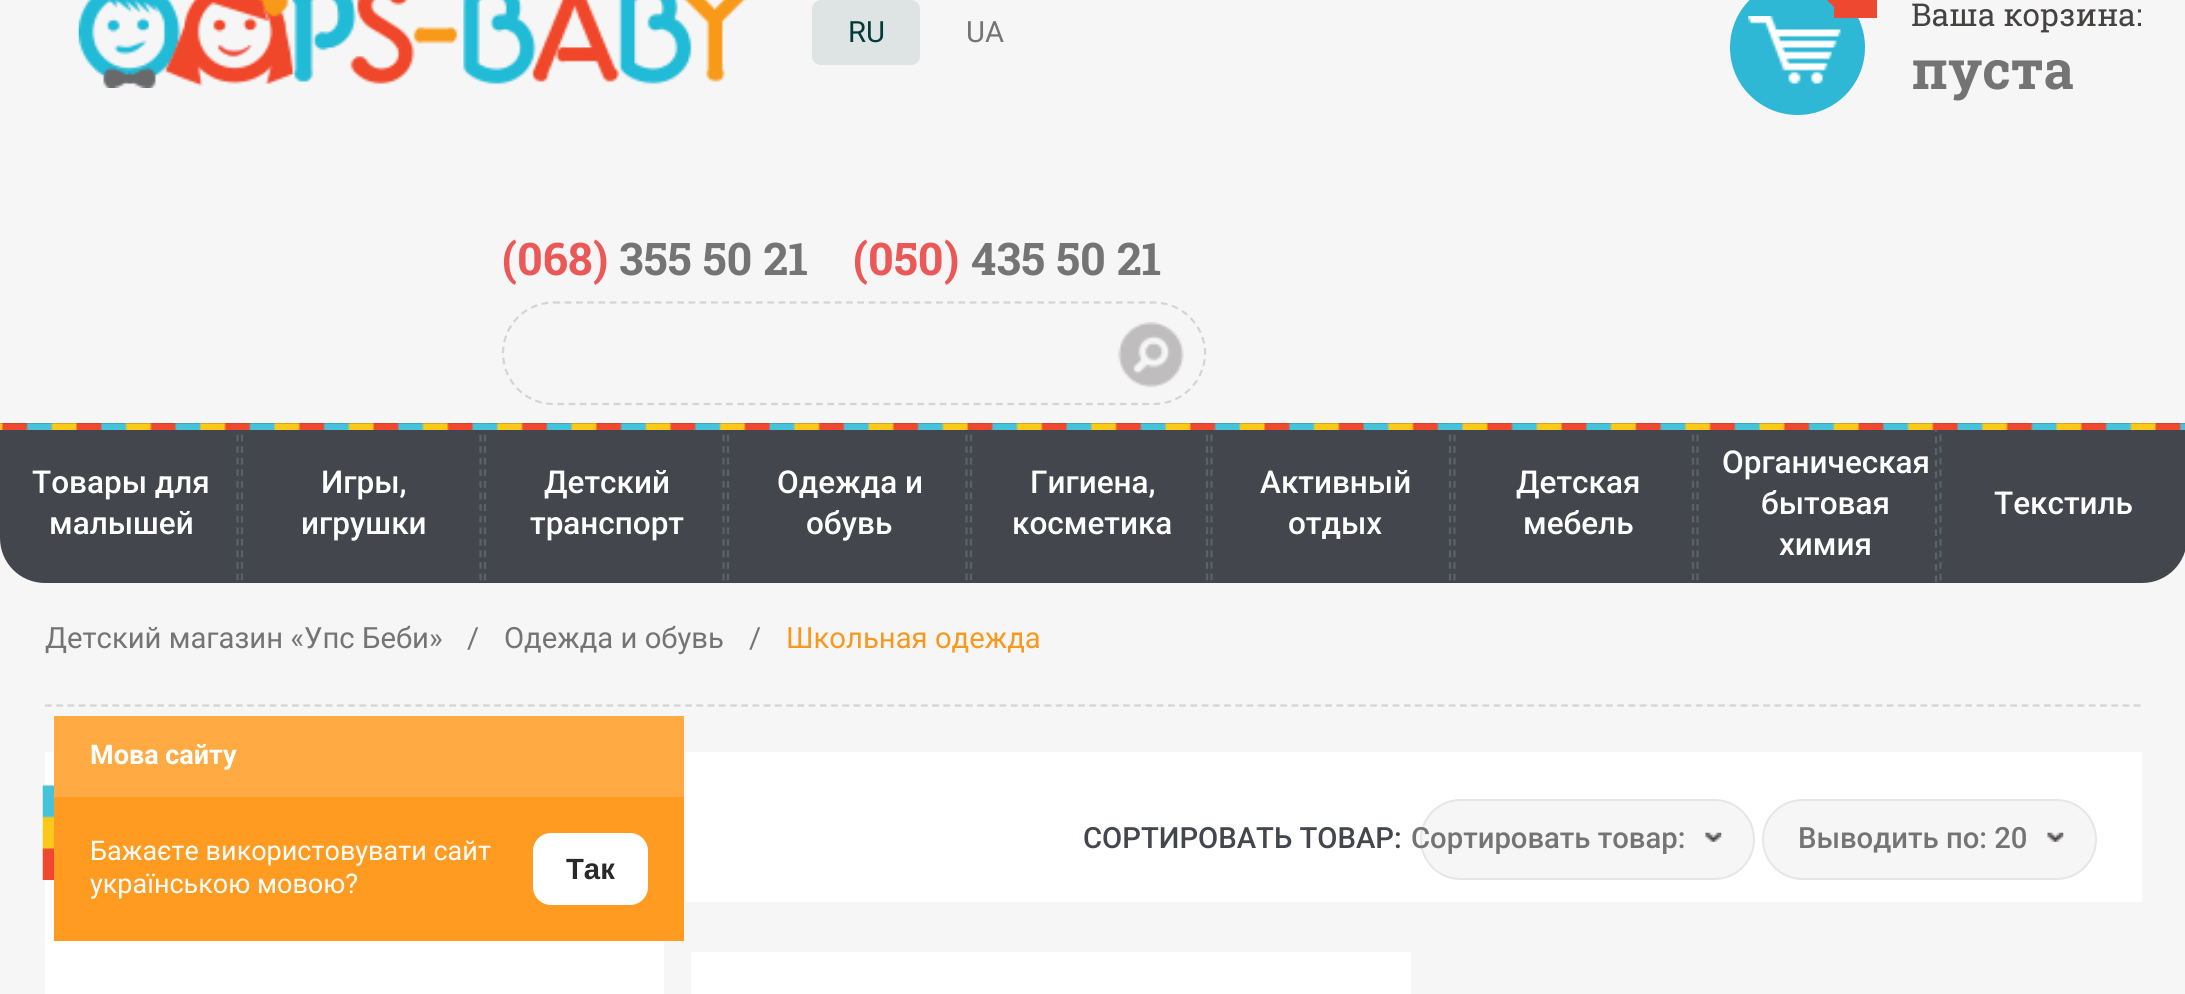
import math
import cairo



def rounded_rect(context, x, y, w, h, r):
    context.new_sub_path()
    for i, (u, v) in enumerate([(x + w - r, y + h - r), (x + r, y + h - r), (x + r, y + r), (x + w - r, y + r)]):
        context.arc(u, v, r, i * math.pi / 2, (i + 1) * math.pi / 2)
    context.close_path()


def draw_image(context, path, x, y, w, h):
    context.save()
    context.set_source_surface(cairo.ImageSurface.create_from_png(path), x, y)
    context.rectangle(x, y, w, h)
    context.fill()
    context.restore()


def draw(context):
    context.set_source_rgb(246 / 255, 246 / 255, 246 / 255)
    context.paint()
    draw_image(context, "images/1.png", 78, 0, 669, 88)
    context.set_source_rgb(222 / 255, 227 / 255, 227 / 255)
    rounded_rect(context, 812, 0, 108, 65, 9)
    context.fill()
    context.set_source_rgb(46 / 255, 184 / 255, 213 / 255)
    context.arc(1797.5, 47.5, 67.5, 0, 2 * math.pi)
    context.fill()
    draw_image(context, "images/2.png", 1748, 16, 93, 68)
    context.set_source_rgb(238 / 255, 72 / 255, 48 / 255)
    context.rectangle(1834, 0, 43, 18)
    context.fill()
    context.new_path()
    context.move_to(1834, -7)
    context.line_to(1834, 7)
    context.line_to(1827, 0)
    context.close_path()
    context.fill()
    context.new_path()
    context.move_to(553.5, 302.5)
    context.line_to(1154, 302.5)
    context.curve_to(1182, 302.5, 1205, 325.5, 1205, 353)
    context.curve_to(1205, 381, 1182, 404, 1154, 404)
    context.line_to(553.5, 404)
    context.curve_to(525.5, 404, 503, 381, 503, 353)
    context.curve_to(503, 325.5, 525.5, 302.5, 553.5, 302.5)
    context.close_path()
    context.set_source_rgb(212 / 255, 212 / 255, 212 / 255)
    context.set_line_width(2.2)
    context.set_dash([6.75, 4.5])
    context.stroke()
    draw_image(context, "images/3.png", 1118, 322, 66, 66)
    context.set_source_rgb(67 / 255, 71 / 255, 77 / 255)
    context.new_path()
    context.move_to(0, 423)
    context.line_to(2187, 423)
    context.line_to(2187, 538)
    context.curve_to(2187, 563, 2167, 583, 2142, 583)
    context.line_to(45, 583)
    context.curve_to(20, 583, 0, 563, 0, 538)
    context.close_path()
    context.fill()
    context.new_path()
    context.move_to(237.5, 423)
    context.line_to(237.5, 580.5)
    context.set_source_rgb(90 / 255, 97 / 255, 107 / 255)
    context.set_dash([6.75, 4.84])
    context.stroke()
    context.new_path()
    context.move_to(242, 423)
    context.line_to(242, 580.5)
    context.stroke()
    context.new_path()
    context.move_to(480.5, 423)
    context.line_to(480.5, 580.5)
    context.stroke()
    context.new_path()
    context.move_to(485, 423)
    context.line_to(485, 580.5)
    context.stroke()
    context.new_path()
    context.move_to(723.5, 423)
    context.line_to(723.5, 580.5)
    context.stroke()
    context.new_path()
    context.move_to(728, 423)
    context.line_to(728, 580.5)
    context.stroke()
    context.new_path()
    context.move_to(966.5, 423)
    context.line_to(966.5, 580.5)
    context.stroke()
    context.new_path()
    context.move_to(971, 423)
    context.line_to(971, 580.5)
    context.stroke()
    context.new_path()
    context.move_to(1207, 423)
    context.line_to(1207, 580.5)
    context.stroke()
    context.new_path()
    context.move_to(1211.5, 423)
    context.line_to(1211.5, 580.5)
    context.stroke()
    context.new_path()
    context.move_to(1450, 423)
    context.line_to(1450, 580.5)
    context.stroke()
    context.new_path()
    context.move_to(1454.5, 423)
    context.line_to(1454.5, 580.5)
    context.stroke()
    context.new_path()
    context.move_to(1693, 423)
    context.line_to(1693, 580.5)
    context.stroke()
    context.new_path()
    context.move_to(1697.5, 423)
    context.line_to(1697.5, 580.5)
    context.stroke()
    context.new_path()
    context.move_to(1936, 425)
    context.line_to(1936, 583)
    context.stroke()
    context.new_path()
    context.move_to(1940.5, 423)
    context.line_to(1940.5, 580.5)
    context.stroke()
    draw_image(context, "images/4.png", 0, 423, 2185, 7)
    context.new_path()
    context.move_to(45, 705.5)
    context.line_to(2142, 705.5)
    context.set_source_rgb(212 / 255, 212 / 255, 212 / 255)
    context.set_dash([6.75, 4.48])
    context.stroke()
    context.set_source_rgb(1, 1, 1)
    context.rectangle(45, 752, 619, 242)
    context.fill()
    draw_image(context, "images/5.png", 42, 785, 12, 95)
    context.rectangle(686, 752, 1456, 150)
    context.fill()
    context.set_source_rgb(246 / 255, 246 / 255, 246 / 255)
    rounded_rect(context, 1421, 800, 333, 79, 39.5)
    context.fill_preserve()
    context.set_source_rgb(230 / 255, 230 / 255, 230 / 255)
    context.set_line_width(2)
    context.set_dash([])
    context.stroke()
    draw_image(context, "images/6.png", 1705, 832, 17, 10)
    context.set_source_rgb(246 / 255, 246 / 255, 246 / 255)
    rounded_rect(context, 1763, 800, 333, 79, 39.5)
    context.fill_preserve()
    context.set_source_rgb(230 / 255, 230 / 255, 230 / 255)
    context.stroke()
    draw_image(context, "images/6.png", 2047, 832, 17, 10)
    context.set_source_rgb(1, 1, 1)
    context.rectangle(691, 952, 720, 42)
    context.fill()
    context.set_source_rgb(1, 155 / 255, 33 / 255)
    context.rectangle(54, 797, 630, 144)
    context.fill()
    context.set_source_rgb(1, 170 / 255, 66 / 255)
    context.rectangle(54, 716, 630, 81)
    context.fill()
    context.set_source_rgb(1, 1, 1)
    rounded_rect(context, 533, 833, 115, 72, 18)
    context.fill()
    context.select_font_face("Roboto")
    context.set_font_size(29.25)
    context.set_source_rgb(2 / 255, 58 / 255, 58 / 255)
    context.move_to(848, 42)
    context.show_text("RU")
    context.set_source_rgb(116 / 255, 116 / 255, 116 / 255)
    context.move_to(966, 42)
    context.show_text("UA")
    context.select_font_face("Roboto Slab")
    context.set_font_size(31.5)
    context.set_source_rgb(69 / 255, 66 / 255, 66 / 255)
    context.move_to(1911, 26)
    context.show_text("Ваша корзина:")
    context.select_font_face("Roboto Slab", cairo.FontSlant.NORMAL, cairo.FontWeight.BOLD)
    context.set_font_size(54)
    context.set_source_rgb(116 / 255, 116 / 255, 116 / 255)
    context.move_to(1911, 89)
    context.show_text("пуста")
    context.set_font_size(45)
    context.set_source_rgb(235 / 255, 88 / 255, 88 / 255)
    context.move_to(502, 275)
    context.show_text("(068)")
    context.set_source_rgb(116 / 255, 116 / 255, 116 / 255)
    context.move_to(619, 275)
    context.show_text("355 50 21")
    context.set_source_rgb(235 / 255, 88 / 255, 88 / 255)
    context.move_to(853, 275)
    context.show_text("(050)")
    context.set_source_rgb(116 / 255, 116 / 255, 116 / 255)
    context.move_to(971, 275)
    context.show_text("435 50 21")
    context.select_font_face("Roboto Medium")
    context.set_font_size(31.5)
    context.set_source_rgb(1, 1, 1)
    context.move_to(32, 493)
    context.show_text("Товары для")
    context.move_to(49, 534)
    context.show_text("малышей")
    context.move_to(321, 493)
    context.show_text("Игры,")
    context.move_to(301, 534)
    context.show_text("игрушки")
    context.move_to(544, 493)
    context.show_text("Детский")
    context.move_to(530, 534)
    context.show_text("транспорт")
    context.move_to(777, 493)
    context.show_text("Одежда и")
    context.move_to(806, 534)
    context.show_text("обувь")
    context.move_to(1030, 493)
    context.show_text("Гигиена,")
    context.move_to(1012, 534)
    context.show_text("косметика")
    context.move_to(1260, 493)
    context.show_text("Активный")
    context.move_to(1288, 534)
    context.show_text("отдых")
    context.move_to(1516, 493)
    context.show_text("Детская")
    context.move_to(1523, 534)
    context.show_text("мебель")
    context.move_to(1722, 473)
    context.show_text("Органическая")
    context.move_to(1761, 514)
    context.show_text("бытовая")
    context.move_to(1779, 555)
    context.show_text("химия")
    context.move_to(1994, 514)
    context.show_text("Текстиль")
    context.select_font_face("Roboto")
    context.set_font_size(29.25)
    context.set_source_rgb(116 / 255, 116 / 255, 116 / 255)
    context.move_to(45, 648)
    context.show_text("Детский магазин «Упс Беби»")
    context.move_to(467, 648)
    context.show_text("/")
    context.move_to(504, 648)
    context.show_text("Одежда и обувь")
    context.move_to(749, 648)
    context.show_text("/")
    context.set_source_rgb(248 / 255, 152 / 255, 29 / 255)
    context.move_to(786, 648)
    context.show_text("Школьная одежда")
    context.select_font_face("Roboto Medium")
    context.set_source_rgb(67 / 255, 71 / 255, 77 / 255)
    context.move_to(1083, 848)
    context.show_text("СОРТИРОВАТЬ ТОВАР:")
    context.set_source_rgb(116 / 255, 116 / 255, 116 / 255)
    context.move_to(1411, 848)
    context.show_text("Сортировать товар:")
    context.move_to(1798, 848)
    context.show_text("Выводить по: 20")
    context.select_font_face("Roboto", cairo.FontSlant.NORMAL, cairo.FontWeight.BOLD)
    context.set_font_size(27)
    context.set_source_rgb(1, 1, 1)
    context.move_to(90, 764)
    context.show_text("Мова сайту")
    context.select_font_face("Roboto")
    context.move_to(90, 860)
    context.show_text("Бажаєте використовувати сайт")
    context.select_font_face("Liberation Sans", cairo.FontSlant.NORMAL, cairo.FontWeight.BOLD)
    context.set_font_size(29.25)
    context.set_source_rgb(41 / 255, 41 / 255, 41 / 255)
    context.move_to(566, 879)
    context.show_text("Так")
    context.select_font_face("Roboto")
    context.set_font_size(27)
    context.set_source_rgb(1, 1, 1)
    context.move_to(90, 893)
    context.show_text("українською мовою?")


surface = cairo.ImageSurface(cairo.Format.RGB24, 2185, 994)
context = cairo.Context(surface)
options = cairo.FontOptions()
options.set_hint_metrics(cairo.HintMetrics.OFF)
options.set_hint_style(cairo.HintStyle.NONE)
context.set_font_options(options)
context.set_miter_limit(4)
draw(context)
surface.write_to_png("out.png")
